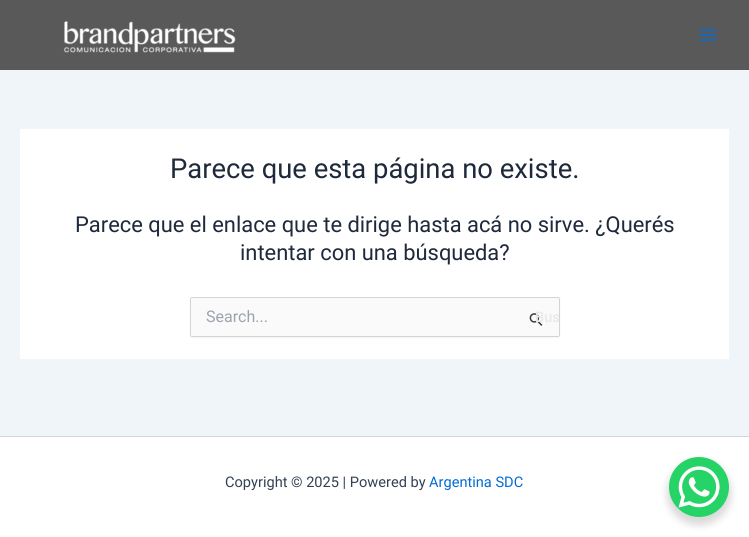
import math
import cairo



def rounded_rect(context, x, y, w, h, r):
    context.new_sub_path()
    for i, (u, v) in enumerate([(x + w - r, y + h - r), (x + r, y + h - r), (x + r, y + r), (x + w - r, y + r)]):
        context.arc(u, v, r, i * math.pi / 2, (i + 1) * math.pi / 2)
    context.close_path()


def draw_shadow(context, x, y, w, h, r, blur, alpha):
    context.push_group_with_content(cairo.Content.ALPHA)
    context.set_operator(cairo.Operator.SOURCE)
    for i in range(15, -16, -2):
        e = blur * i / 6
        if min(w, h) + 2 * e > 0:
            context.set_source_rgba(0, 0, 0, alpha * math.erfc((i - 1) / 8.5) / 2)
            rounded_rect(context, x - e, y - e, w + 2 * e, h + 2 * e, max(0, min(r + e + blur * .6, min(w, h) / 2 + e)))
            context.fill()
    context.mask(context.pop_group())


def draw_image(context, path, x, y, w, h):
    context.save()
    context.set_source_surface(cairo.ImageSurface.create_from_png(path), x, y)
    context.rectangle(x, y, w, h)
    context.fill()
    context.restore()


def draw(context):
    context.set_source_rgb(240 / 255, 245 / 255, 250 / 255)
    context.paint()
    context.set_source_rgb(89 / 255, 89 / 255, 89 / 255)
    context.rectangle(0, 0, 749, 70)
    context.fill()
    draw_image(context, "images/1.png", 63, 21, 173, 32)
    draw_image(context, "images/2.png", 699, 29, 18, 12)
    context.set_source_rgb(1, 1, 1)
    context.rectangle(20, 129, 709, 230)
    context.fill()
    context.set_source_rgb(0, 0, 0)
    draw_shadow(context, 190, 298, 370, 40, 2, 1, 0.05)
    context.set_source_rgb(250 / 255, 250 / 255, 250 / 255)
    rounded_rect(context, 190.5, 297.5, 369, 39, 1.5)
    context.fill_preserve()
    context.set_source_rgb(209 / 255, 213 / 255, 219 / 255)
    context.set_line_width(1)
    context.stroke()
    draw_image(context, "images/3.png", 529, 313, 14, 13)
    context.set_source_rgb(1, 1, 1)
    context.rectangle(0, 437, 749, 100)
    context.fill()
    context.set_source_rgb(209 / 255, 213 / 255, 219 / 255)
    context.rectangle(0, 436, 749, 1)
    context.fill()
    context.set_source_rgb(0, 0, 0)
    draw_shadow(context, 667, 461, 64, 64, 32, 4, 0.15)
    context.set_source_rgb(37 / 255, 211 / 255, 102 / 255)
    context.arc(699, 487, 30, 0, 2 * math.pi)
    context.fill()
    draw_image(context, "images/4.png", 678, 466, 42, 42)
    context.select_font_face("Roboto")
    context.set_font_size(27.4)
    context.set_source_rgb(30 / 255, 41 / 255, 59 / 255)
    context.move_to(170, 178)
    context.show_text("Parece que esta página no existe.")
    context.set_font_size(21.9)
    context.move_to(75, 232)
    context.show_text("Parece que el enlace que te dirige hasta acá no sirve. ¿Querés")
    context.move_to(240, 260)
    context.show_text("intentar con una búsqueda?")
    context.set_font_size(16)
    context.set_source_rgb(156 / 255, 163 / 255, 175 / 255)
    context.move_to(206, 322)
    context.show_text("Search...")
    context.select_font_face("Roboto Medium")
    context.set_font_size(14.6)
    context.set_source_rgb(233 / 255, 233 / 255, 233 / 255)
    context.move_to(535, 322)
    context.show_text("Bus")
    context.select_font_face("Roboto")
    context.set_source_rgb(51 / 255, 65 / 255, 85 / 255)
    context.move_to(225, 487)
    context.show_text("Copyright © 2025 | Powered by")
    context.set_source_rgb(4 / 255, 107 / 255, 210 / 255)
    context.move_to(429, 487)
    context.show_text("Argentina SDC")


surface = cairo.ImageSurface(cairo.Format.RGB24, 749, 537)
context = cairo.Context(surface)
options = cairo.FontOptions()
options.set_hint_metrics(cairo.HintMetrics.OFF)
options.set_hint_style(cairo.HintStyle.NONE)
context.set_font_options(options)
context.set_miter_limit(4)
draw(context)
surface.write_to_png("out.png")
